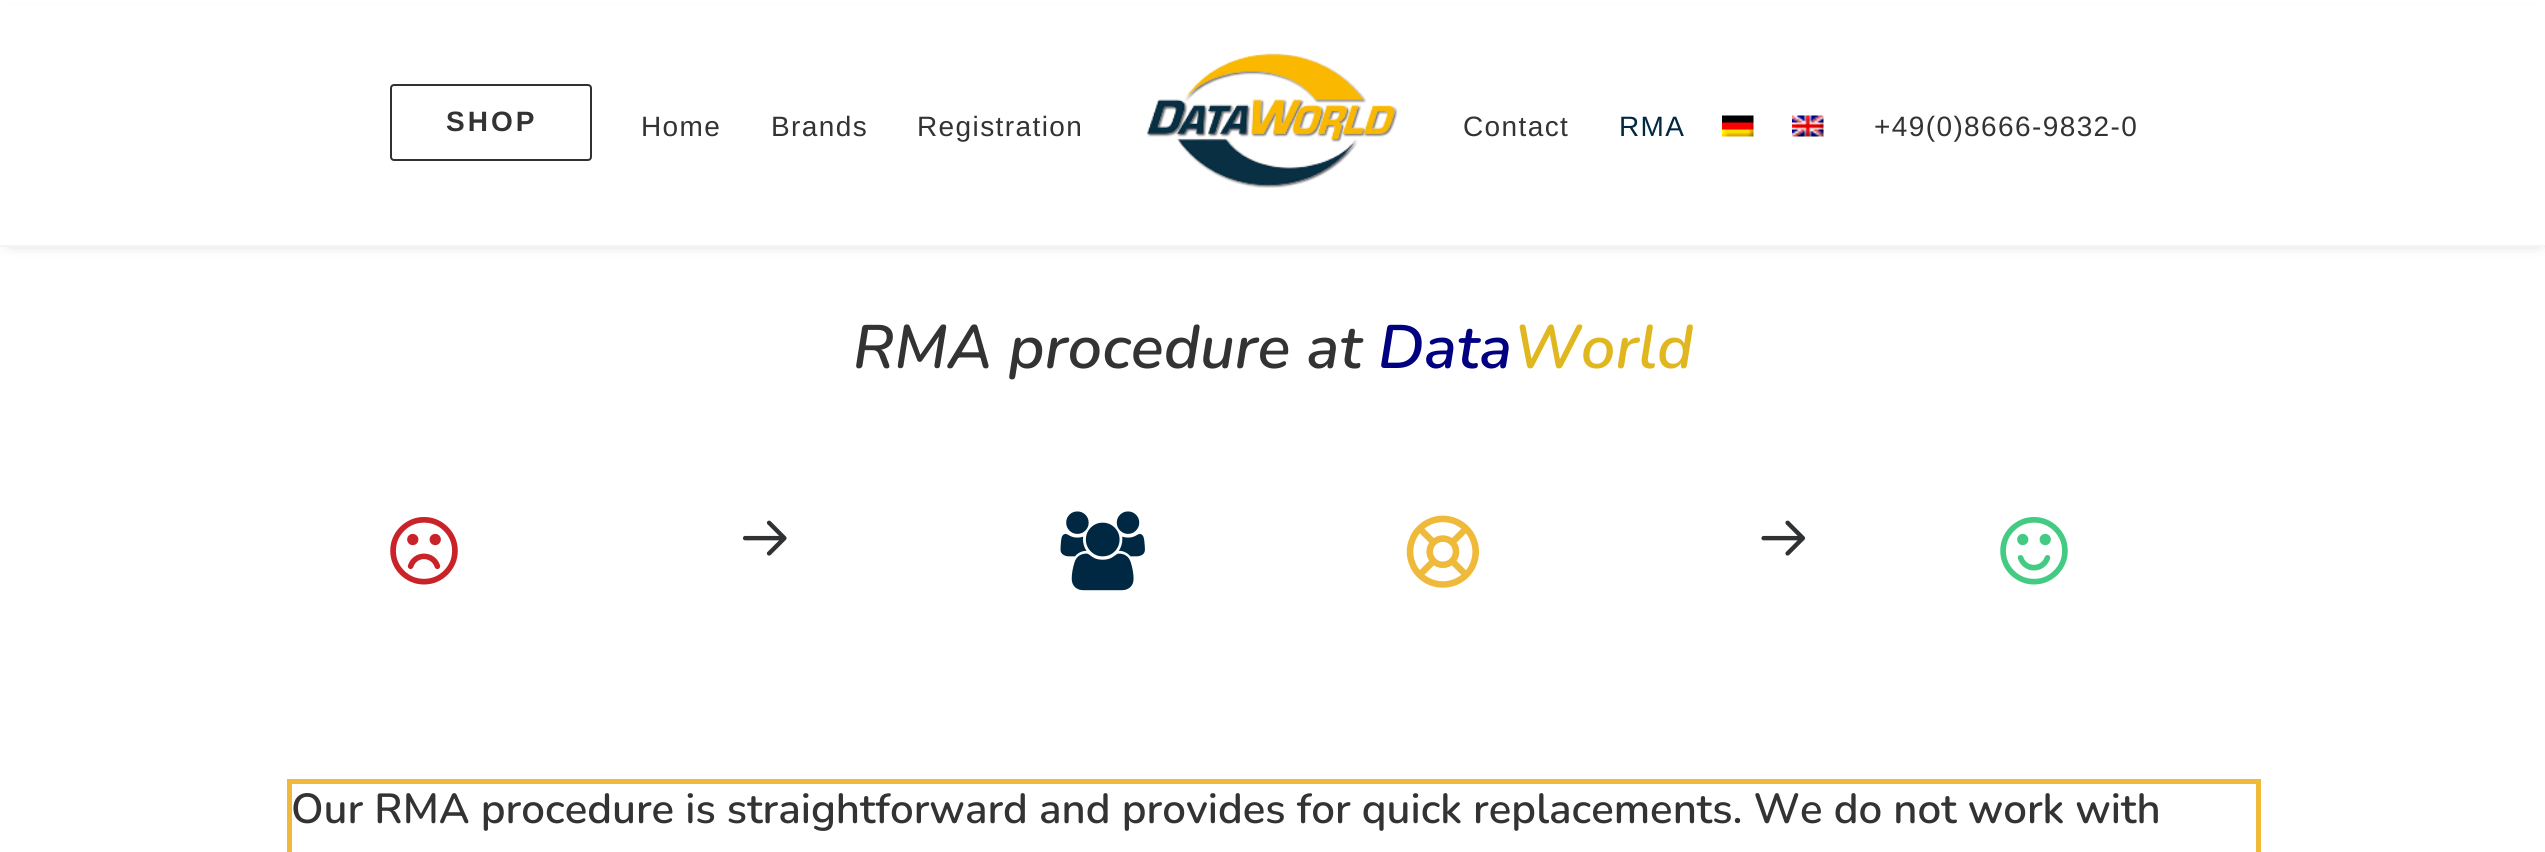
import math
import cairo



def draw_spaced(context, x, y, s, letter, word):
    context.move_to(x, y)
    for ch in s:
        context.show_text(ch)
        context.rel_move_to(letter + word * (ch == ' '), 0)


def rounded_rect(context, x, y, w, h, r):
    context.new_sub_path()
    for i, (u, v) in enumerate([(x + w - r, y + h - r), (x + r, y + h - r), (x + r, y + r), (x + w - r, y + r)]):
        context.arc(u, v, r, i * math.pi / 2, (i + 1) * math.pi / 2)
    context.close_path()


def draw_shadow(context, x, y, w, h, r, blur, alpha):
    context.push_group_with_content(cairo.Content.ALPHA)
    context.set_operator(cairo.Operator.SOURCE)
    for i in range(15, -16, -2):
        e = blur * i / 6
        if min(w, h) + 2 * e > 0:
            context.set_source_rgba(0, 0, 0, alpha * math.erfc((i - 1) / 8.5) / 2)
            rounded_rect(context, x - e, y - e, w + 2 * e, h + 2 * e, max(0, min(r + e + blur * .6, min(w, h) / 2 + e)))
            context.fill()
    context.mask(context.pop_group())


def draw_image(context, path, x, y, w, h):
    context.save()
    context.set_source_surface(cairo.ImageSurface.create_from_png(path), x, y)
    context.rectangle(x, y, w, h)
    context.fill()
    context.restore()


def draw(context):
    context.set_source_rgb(1, 1, 1)
    context.paint()
    context.set_source_rgb(0, 0, 0)
    draw_shadow(context, 11, 25, 2527, 211, 0, 9, 0.6)
    context.set_source_rgb(1, 1, 1)
    context.rectangle(0, 6, 2545, 239)
    context.fill()
    context.set_source_rgb(245 / 255, 245 / 255, 245 / 255)
    context.rectangle(0, 245, 2545, 2)
    context.fill()
    rounded_rect(context, 391, 85, 200, 75, 3)
    context.set_source_rgb(48 / 255, 49 / 255, 51 / 255)
    context.stroke()
    draw_image(context, "images/1.png", 1146, 53, 252, 135)
    draw_image(context, "images/2.png", 1722, 115, 32, 22)
    draw_image(context, "images/3.png", 1792, 115, 32, 22)
    draw_image(context, "images/4.png", 390, 517, 68, 68)
    draw_image(context, "images/5.png", 742, 520, 45, 36)
    draw_image(context, "images/6.png", 1060, 511, 85, 80)
    draw_image(context, "images/7.png", 1406, 515, 73, 73)
    draw_image(context, "images/8.png", 1761, 520, 45, 36)
    draw_image(context, "images/9.png", 2000, 517, 68, 68)
    context.rectangle(289.5, 781.5, 1969, 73)
    context.set_source_rgb(239 / 255, 185 / 255, 57 / 255)
    context.set_line_width(5)
    context.stroke()
    context.select_font_face("Liberation Sans", cairo.FontSlant.NORMAL, cairo.FontWeight.BOLD)
    context.set_font_size(28)
    context.set_source_rgb(51 / 255, 51 / 255, 51 / 255)
    draw_spaced(context, 446, 131, "SHOP", 3, 0)
    context.select_font_face("Liberation Sans")
    draw_spaced(context, 641, 136, "Home", 1.4, 0)
    draw_spaced(context, 771, 136, "Brands", 1.4, 0)
    draw_spaced(context, 917, 136, "Registration", 1.4, 0)
    draw_spaced(context, 1463, 136, "Contact", 1.4, 0)
    context.set_source_rgb(0, 40 / 255, 66 / 255)
    draw_spaced(context, 1619, 136, "RMA", 1.4, 0)
    context.set_source_rgb(51 / 255, 51 / 255, 51 / 255)
    draw_spaced(context, 1874, 136, "+49(0)8666-9832-0", 1.4, 0)
    context.select_font_face("Nunito ExtraLight", cairo.FontSlant.ITALIC)
    context.set_font_size(61.25)
    context.move_to(853, 368)
    context.show_text("RMA procedure at")
    context.set_source_rgb(0, 0, 128 / 255)
    context.move_to(1378, 368)
    context.show_text("Data")
    context.set_source_rgb(224 / 255, 183 / 255, 31 / 255)
    context.move_to(1513, 368)
    context.show_text("World")
    context.select_font_face("Nunito ExtraLight")
    context.set_font_size(42)
    context.set_source_rgb(51 / 255, 51 / 255, 51 / 255)
    context.move_to(291, 823)
    context.show_text("Our RMA procedure is straightforward and provides for quick replacements. We do not work with")


surface = cairo.ImageSurface(cairo.Format.RGB24, 2545, 852)
context = cairo.Context(surface)
options = cairo.FontOptions()
options.set_hint_metrics(cairo.HintMetrics.OFF)
options.set_hint_style(cairo.HintStyle.NONE)
context.set_font_options(options)
context.set_miter_limit(4)
draw(context)
surface.write_to_png("out.png")
